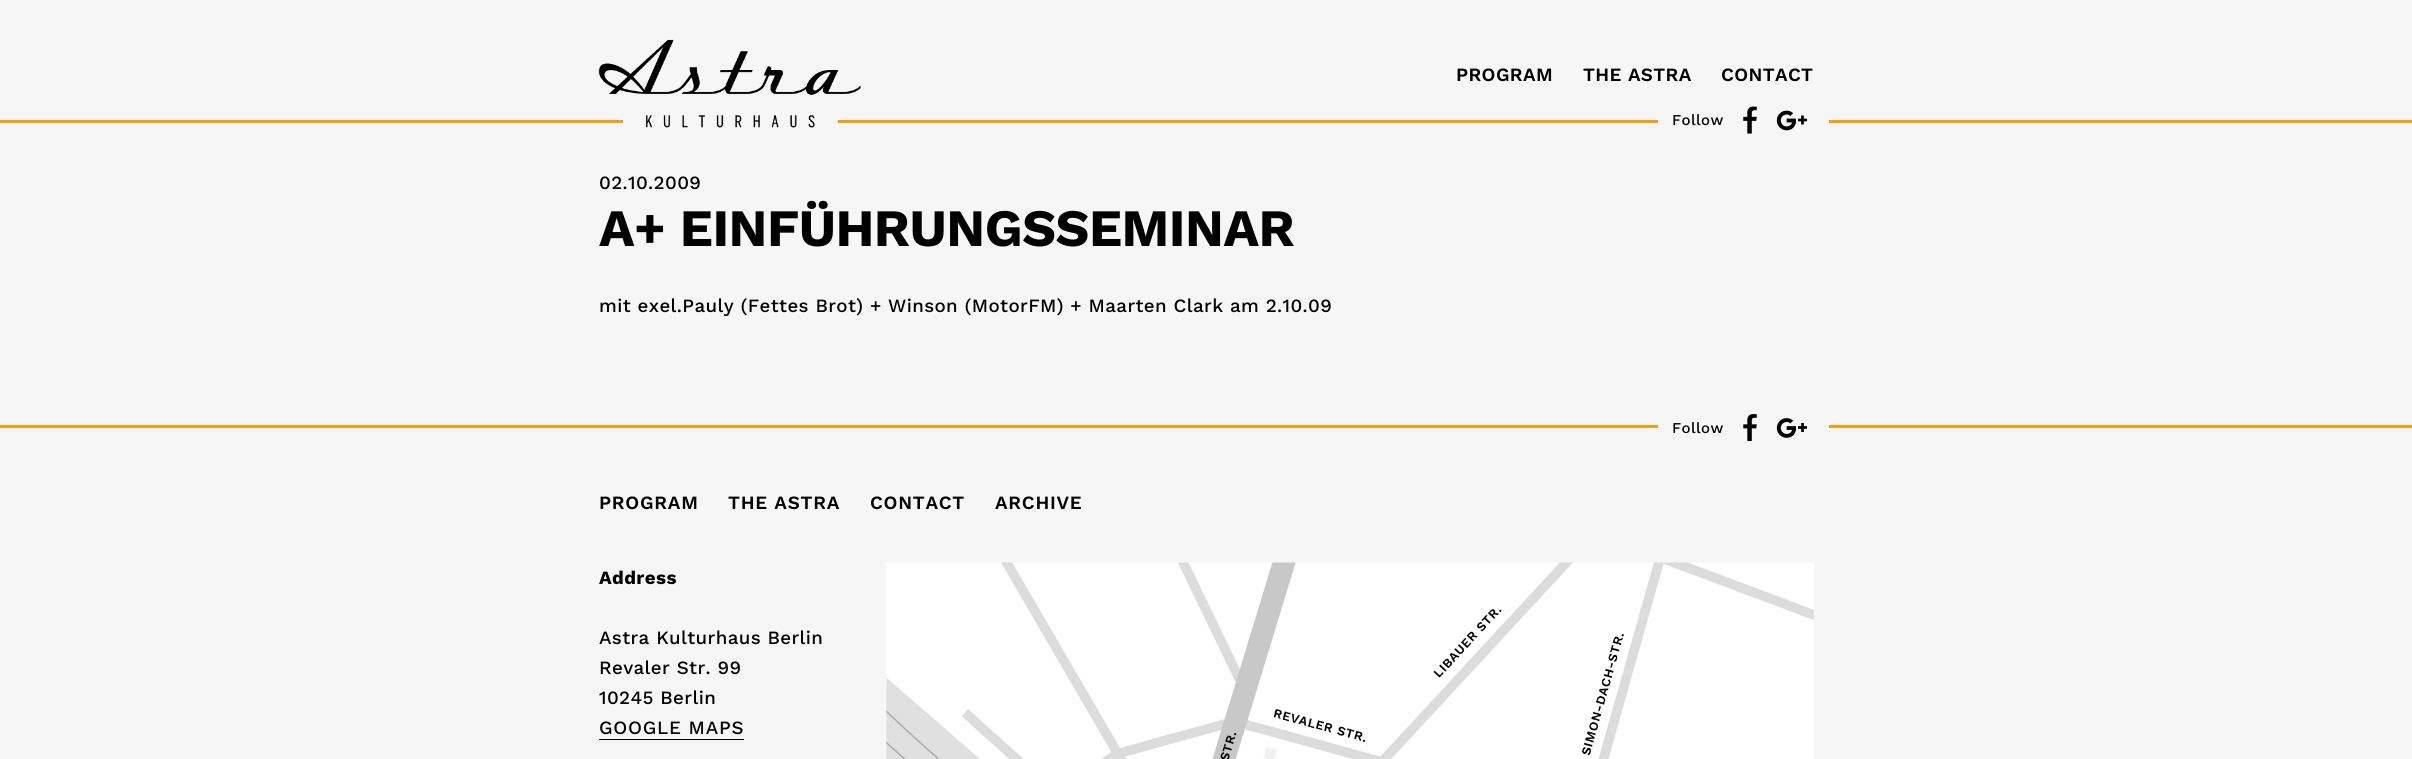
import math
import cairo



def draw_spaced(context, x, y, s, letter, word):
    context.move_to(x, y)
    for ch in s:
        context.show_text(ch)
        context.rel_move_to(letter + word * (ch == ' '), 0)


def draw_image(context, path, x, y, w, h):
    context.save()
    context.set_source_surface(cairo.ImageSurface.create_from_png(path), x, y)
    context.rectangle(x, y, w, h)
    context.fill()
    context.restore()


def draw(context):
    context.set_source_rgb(247 / 255, 246 / 255, 246 / 255)
    context.paint()
    context.set_source_rgb(240 / 255, 160 / 255, 22 / 255)
    context.rectangle(0, 120, 2412, 3)
    context.fill()
    draw_image(context, "images/1.png", 598, 39, 263, 89)
    context.set_source_rgb(247 / 255, 246 / 255, 246 / 255)
    context.rectangle(1658, 120, 171, 3)
    context.fill()
    draw_image(context, "images/2.png", 1743, 106, 14, 28)
    draw_image(context, "images/3.png", 1776, 110, 31, 21)
    context.set_source_rgb(240 / 255, 160 / 255, 22 / 255)
    context.rectangle(0, 425, 2412, 3)
    context.fill()
    context.set_source_rgb(247 / 255, 246 / 255, 246 / 255)
    context.rectangle(1658, 425, 171, 3)
    context.fill()
    draw_image(context, "images/4.png", 1743, 414, 14, 27)
    draw_image(context, "images/5.png", 1776, 418, 31, 20)
    context.set_source_rgb(0, 0, 0)
    context.rectangle(599, 739, 145, 1)
    context.fill()
    draw_image(context, "images/6.png", 886, 562, 928, 197)
    context.select_font_face("Work Sans SemiBold")
    context.set_font_size(18.75)
    draw_spaced(context, 1456, 81, "PROGRAM", 0.38, 0)
    draw_spaced(context, 1583, 81, "THE ASTRA", 0.38, 0)
    draw_spaced(context, 1721, 81, "CONTACT", 0.38, 0)
    context.select_font_face("Work Sans Medium")
    context.set_font_size(15)
    draw_spaced(context, 1672, 125, "Follow", 0.38, 0)
    context.set_font_size(18.75)
    draw_spaced(context, 599, 189, "02.10.2009", 0.38, 0)
    context.select_font_face("Work Sans", cairo.FontSlant.NORMAL, cairo.FontWeight.BOLD)
    context.set_font_size(52.5)
    draw_spaced(context, 599, 246, "A+ EINFÜHRUNGSSEMINAR", -0.5, 0)
    context.select_font_face("Work Sans Medium")
    context.set_font_size(18.75)
    draw_spaced(context, 599, 312, "mit exel.Pauly (Fettes Brot) + Winson (MotorFM) + Maarten Clark am 2.10.09", 0.38, 0)
    context.set_font_size(15)
    draw_spaced(context, 1672, 433, "Follow", 0.38, 0)
    context.select_font_face("Work Sans SemiBold")
    context.set_font_size(18.75)
    draw_spaced(context, 599, 509, "PROGRAM", 0.75, 0)
    draw_spaced(context, 728, 509, "THE ASTRA", 0.75, 0)
    draw_spaced(context, 870, 509, "CONTACT", 0.75, 0)
    draw_spaced(context, 995, 509, "ARCHIVE", 0.75, 0)
    context.select_font_face("Work Sans", cairo.FontSlant.NORMAL, cairo.FontWeight.BOLD)
    draw_spaced(context, 599, 584, "Address", 0.38, 0)
    context.select_font_face("Work Sans Medium")
    draw_spaced(context, 599, 644, "Astra Kulturhaus Berlin", 0.38, 0)
    draw_spaced(context, 599, 674, "Revaler Str. 99", 0.38, 0)
    draw_spaced(context, 599, 704, "10245 Berlin", 0.38, 0)
    draw_spaced(context, 599, 734, "GOOGLE MAPS", 0.75, 0)


surface = cairo.ImageSurface(cairo.Format.RGB24, 2412, 759)
context = cairo.Context(surface)
options = cairo.FontOptions()
options.set_hint_metrics(cairo.HintMetrics.OFF)
options.set_hint_style(cairo.HintStyle.NONE)
context.set_font_options(options)
context.set_miter_limit(4)
draw(context)
surface.write_to_png("out.png")
